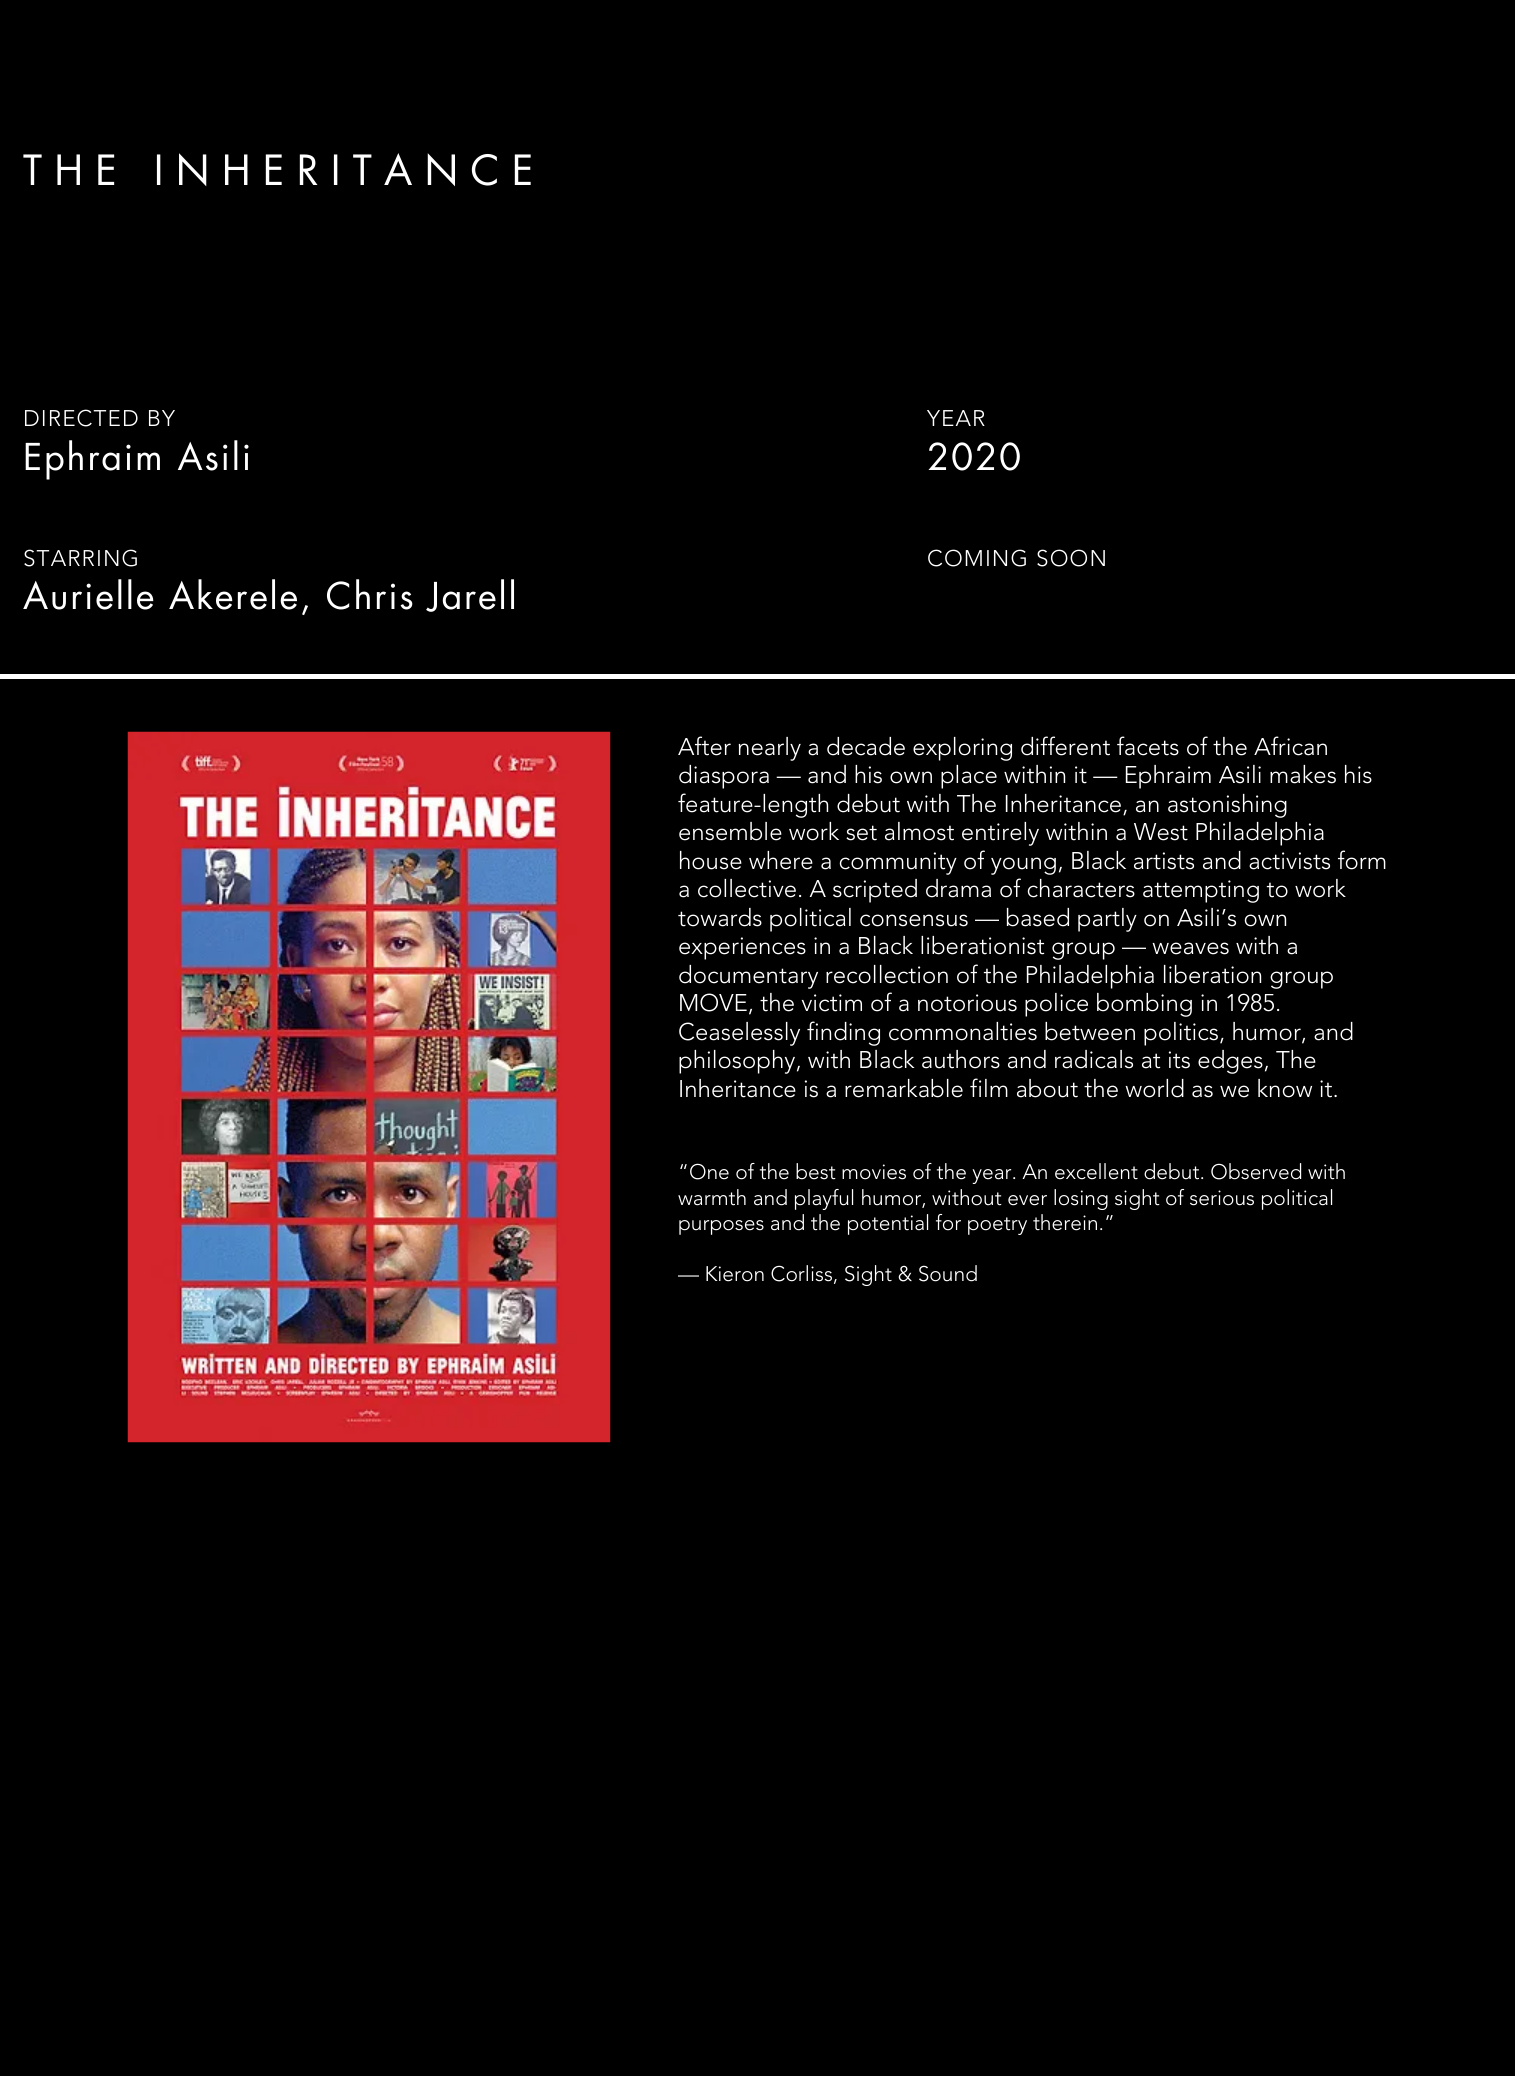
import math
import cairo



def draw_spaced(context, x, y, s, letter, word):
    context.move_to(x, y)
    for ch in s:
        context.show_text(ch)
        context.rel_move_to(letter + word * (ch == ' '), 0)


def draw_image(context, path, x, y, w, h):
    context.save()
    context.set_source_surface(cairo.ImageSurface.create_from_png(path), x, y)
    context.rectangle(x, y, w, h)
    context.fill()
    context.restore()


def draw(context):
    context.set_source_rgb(0, 0, 0)
    context.paint()
    draw_image(context, "images/1.png", 127, 731, 484, 712)
    context.set_source_rgb(1, 1, 1)
    context.rectangle(0, 674, 1515, 5)
    context.fill()
    context.select_font_face("futura")
    context.set_font_size(40.5)
    draw_spaced(context, 23, 185, "THE INHERITANCE", 12.2, 0)
    context.select_font_face("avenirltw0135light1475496 Light")
    context.set_font_size(22.5)
    draw_spaced(context, 23, 426, "DIRECTED BY", 1.1, 0)
    draw_spaced(context, 927, 426, "YEAR", 1.1, 0)
    context.select_font_face("futura")
    context.set_font_size(36)
    draw_spaced(context, 23, 470, "Ephraim Asili", 1.8, 0)
    draw_spaced(context, 927, 470, "2020", 1.8, 0)
    context.select_font_face("avenirltw0135light1475496 Light")
    context.set_font_size(22.5)
    draw_spaced(context, 23, 566, "STARRING", 1.1, 0)
    draw_spaced(context, 927, 566, "COMING SOON", 1.1, 0)
    context.select_font_face("futura")
    context.set_font_size(36)
    draw_spaced(context, 23, 609, "Aurielle Akerele, Chris Jarell", 1.8, 0)
    context.select_font_face("avenirltw0135light1475496 Light")
    context.set_font_size(24)
    context.move_to(678, 755)
    context.show_text("After nearly a decade exploring different facets of the African")
    context.move_to(678, 783)
    context.show_text("diaspora — and his own place within it — Ephraim Asili makes his")
    context.move_to(678, 812)
    context.show_text("feature-length debut with The Inheritance, an astonishing")
    context.move_to(678, 840)
    context.show_text("ensemble work set almost entirely within a West Philadelphia")
    context.move_to(678, 869)
    context.show_text("house where a community of young, Black artists and activists form")
    context.move_to(678, 897)
    context.show_text("a collective. A scripted drama of characters attempting to work")
    context.move_to(678, 926)
    context.show_text("towards political consensus — based partly on Asili’s own")
    context.move_to(678, 954)
    context.show_text("experiences in a Black liberationist group — weaves with a")
    context.move_to(678, 983)
    context.show_text("documentary recollection of the Philadelphia liberation group")
    context.move_to(678, 1011)
    context.show_text("MOVE, the victim of a notorious police bombing in 1985.")
    context.move_to(678, 1040)
    context.show_text("Ceaselessly finding commonalties between politics, humor, and")
    context.move_to(678, 1068)
    context.show_text("philosophy, with Black authors and radicals at its edges, The")
    context.move_to(678, 1097)
    context.show_text("Inheritance is a remarkable film about the world as we know it.")
    context.set_font_size(21)
    context.move_to(678, 1179)
    context.show_text("“One of the best movies of the year. An excellent debut. Observed with")
    context.move_to(678, 1205)
    context.show_text("warmth and playful humor, without ever losing sight of serious political")
    context.move_to(678, 1230)
    context.show_text("purposes and the potential for poetry therein.”")
    context.move_to(678, 1281)
    context.show_text("— Kieron Corliss, Sight & Sound")


surface = cairo.ImageSurface(cairo.Format.RGB24, 1515, 2076)
context = cairo.Context(surface)
options = cairo.FontOptions()
options.set_hint_metrics(cairo.HintMetrics.OFF)
options.set_hint_style(cairo.HintStyle.NONE)
context.set_font_options(options)
context.set_miter_limit(4)
draw(context)
surface.write_to_png("out.png")
